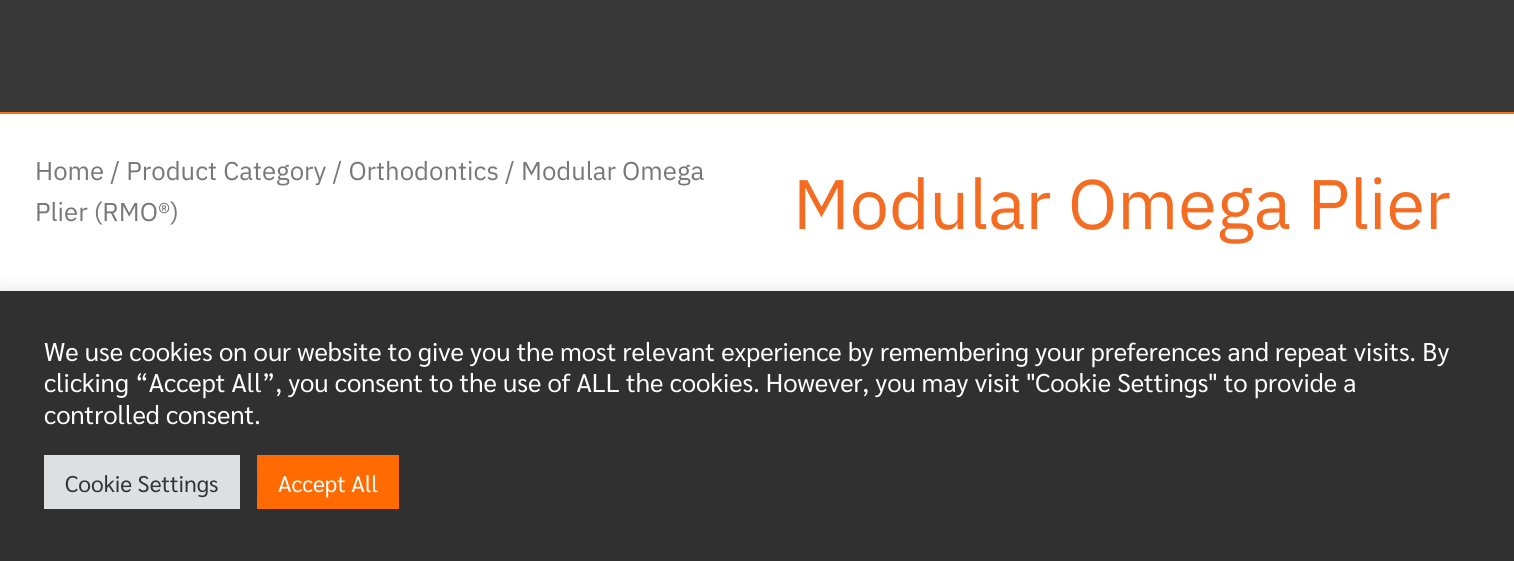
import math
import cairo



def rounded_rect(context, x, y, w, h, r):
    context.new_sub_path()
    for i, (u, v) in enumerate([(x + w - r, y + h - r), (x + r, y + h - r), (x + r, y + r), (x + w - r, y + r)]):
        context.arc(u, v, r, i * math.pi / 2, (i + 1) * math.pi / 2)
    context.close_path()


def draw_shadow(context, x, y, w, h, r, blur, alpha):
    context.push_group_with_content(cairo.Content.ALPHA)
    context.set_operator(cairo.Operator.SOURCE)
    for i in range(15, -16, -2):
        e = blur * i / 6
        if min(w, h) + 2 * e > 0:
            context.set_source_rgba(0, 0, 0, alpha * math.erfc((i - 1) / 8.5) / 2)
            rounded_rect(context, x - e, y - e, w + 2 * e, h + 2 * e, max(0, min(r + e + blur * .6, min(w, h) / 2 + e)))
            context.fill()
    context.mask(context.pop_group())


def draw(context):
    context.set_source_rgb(1, 1, 1)
    context.paint()
    context.set_source_rgb(56 / 255, 56 / 255, 56 / 255)
    context.rectangle(0, 0, 1514, 112)
    context.fill()
    context.set_source_rgb(247 / 255, 116 / 255, 19 / 255)
    context.rectangle(0, 112, 1514, 2)
    context.fill()
    context.set_source_rgb(172 / 255, 171 / 255, 171 / 255)
    draw_shadow(context, 0, 289, 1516, 271, 0, 9, 0.3)
    context.set_source_rgb(48 / 255, 48 / 255, 48 / 255)
    context.rectangle(0, 291, 1514, 270)
    context.fill()
    context.set_source_rgb(222 / 255, 223 / 255, 224 / 255)
    context.rectangle(44, 455, 196, 54)
    context.fill()
    context.set_source_rgb(1, 107 / 255, 0)
    context.rectangle(257, 455, 142, 54)
    context.fill()
    context.select_font_face("anuphan")
    context.set_font_size(25.75)
    context.set_source_rgb(119 / 255, 119 / 255, 119 / 255)
    context.move_to(35, 180)
    context.show_text("Home / Product Category / Orthodontics / Modular Omega")
    context.move_to(35, 221)
    context.show_text("Plier (RMO®)")
    context.set_font_size(70)
    context.set_source_rgb(244 / 255, 108 / 255, 34 / 255)
    context.move_to(793, 229)
    context.show_text("Modular Omega Plier")
    context.select_font_face("Sarabun")
    context.set_font_size(25.67)
    context.set_source_rgb(1, 1, 1)
    context.move_to(44, 361)
    context.show_text("We use cookies on our website to give you the most relevant experience by remembering your preferences and repeat visits. By")
    context.move_to(44, 392)
    context.show_text("clicking “Accept All”, you consent to the use of ALL the cookies. However, you may visit \"Cookie Settings\" to provide a")
    context.move_to(44, 424)
    context.show_text("controlled consent.")
    context.set_font_size(22.75)
    context.set_source_rgb(51 / 255, 51 / 255, 51 / 255)
    context.move_to(65, 492)
    context.show_text("Cookie Settings")
    context.set_source_rgb(1, 1, 1)
    context.move_to(278, 492)
    context.show_text("Accept All")


surface = cairo.ImageSurface(cairo.Format.RGB24, 1514, 561)
context = cairo.Context(surface)
options = cairo.FontOptions()
options.set_hint_metrics(cairo.HintMetrics.OFF)
options.set_hint_style(cairo.HintStyle.NONE)
context.set_font_options(options)
context.set_miter_limit(4)
draw(context)
surface.write_to_png("out.png")
